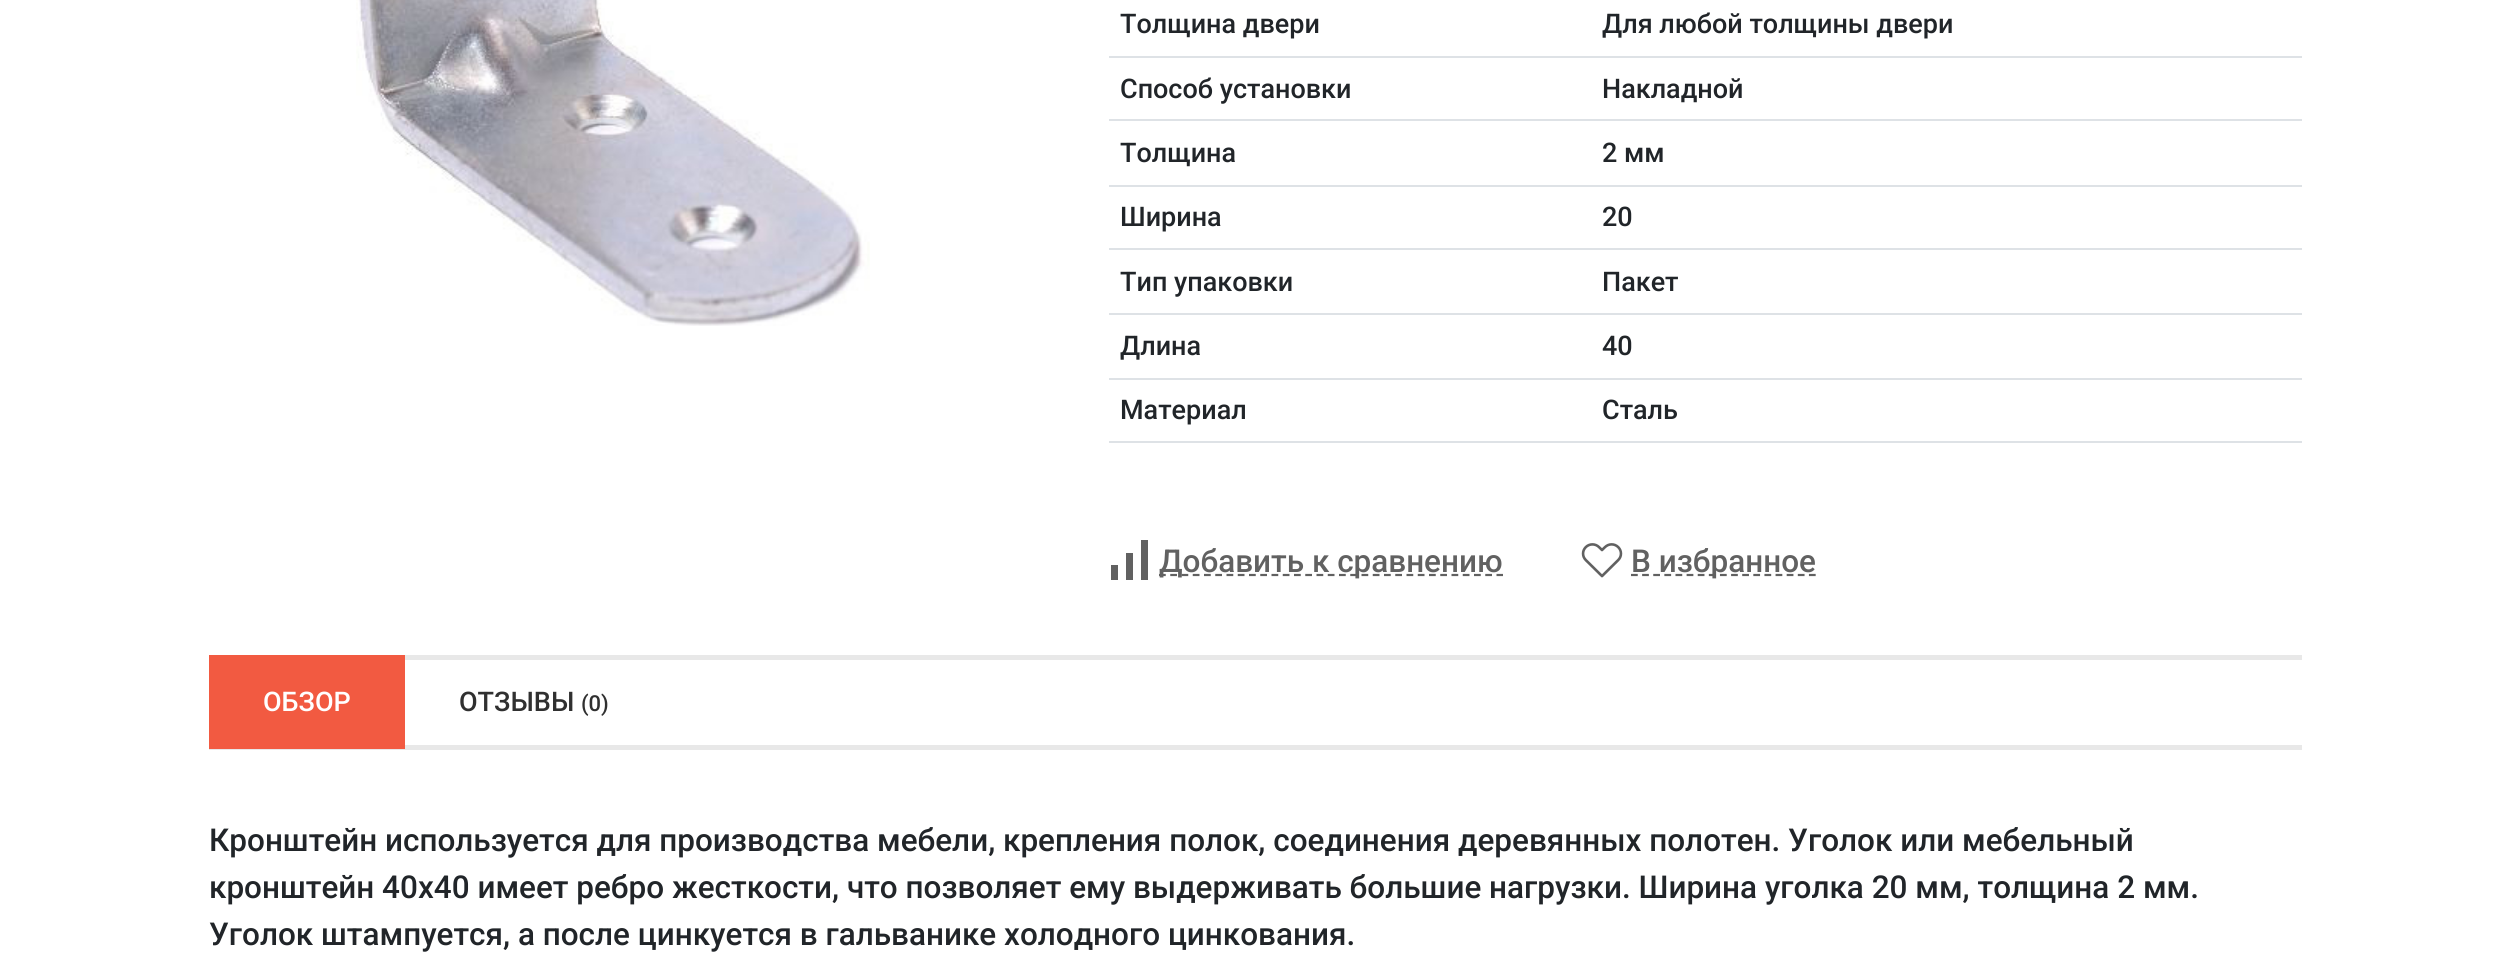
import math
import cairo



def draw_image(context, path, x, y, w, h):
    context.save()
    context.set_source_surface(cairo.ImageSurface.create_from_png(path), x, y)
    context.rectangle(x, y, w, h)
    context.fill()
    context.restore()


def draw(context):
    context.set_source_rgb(1, 1, 1)
    context.paint()
    draw_image(context, "images/1.png", 356, 0, 514, 326)
    context.set_source_rgb(222 / 255, 226 / 255, 230 / 255)
    context.rectangle(1109, 56, 1193, 2)
    context.fill()
    context.rectangle(1109, 119, 1193, 2)
    context.fill()
    context.rectangle(1109, 185, 1193, 2)
    context.fill()
    context.rectangle(1109, 248, 1193, 2)
    context.fill()
    context.rectangle(1109, 313, 1193, 2)
    context.fill()
    context.rectangle(1109, 378, 1193, 2)
    context.fill()
    context.rectangle(1109, 441, 1193, 2)
    context.fill()
    context.set_source_rgb(97 / 255, 97 / 255, 97 / 255)
    context.new_path()
    context.move_to(1141, 540)
    context.line_to(1148, 540)
    context.line_to(1148, 580)
    context.line_to(1141, 580)
    context.close_path()
    context.move_to(1111, 565)
    context.line_to(1118, 565)
    context.line_to(1118, 580)
    context.line_to(1111, 580)
    context.close_path()
    context.move_to(1126, 553)
    context.line_to(1133, 553)
    context.line_to(1133, 580)
    context.line_to(1126, 580)
    context.close_path()
    context.fill()
    context.new_path()
    context.move_to(1159, 575)
    context.line_to(1503, 575)
    context.set_line_width(2.2)
    context.set_dash([6.75, 4.5])
    context.stroke()
    draw_image(context, "images/2.png", 1581, 543, 42, 35)
    context.new_path()
    context.move_to(1631, 575)
    context.line_to(1816, 575)
    context.set_dash([6.75, 4.37])
    context.stroke()
    context.set_source_rgb(232 / 255, 232 / 255, 232 / 255)
    context.rectangle(405, 655, 1897, 5)
    context.fill()
    context.rectangle(209, 745, 2093, 5)
    context.fill()
    context.set_source_rgb(242 / 255, 90 / 255, 65 / 255)
    context.rectangle(209, 655, 196, 94)
    context.fill()
    context.select_font_face("Roboto Medium")
    context.set_font_size(27)
    context.set_source_rgb(33 / 255, 37 / 255, 41 / 255)
    context.move_to(1120, 33)
    context.show_text("Толщина двери")
    context.move_to(1602, 33)
    context.show_text("Для любой толщины двери")
    context.move_to(1120, 98)
    context.show_text("Способ установки")
    context.move_to(1602, 98)
    context.show_text("Накладной")
    context.move_to(1120, 162)
    context.show_text("Толщина")
    context.move_to(1602, 162)
    context.show_text("2 мм")
    context.move_to(1120, 226)
    context.show_text("Ширина")
    context.move_to(1602, 226)
    context.show_text("20")
    context.move_to(1120, 291)
    context.show_text("Тип упаковки")
    context.move_to(1602, 291)
    context.show_text("Пакет")
    context.move_to(1120, 355)
    context.show_text("Длина")
    context.move_to(1602, 355)
    context.show_text("40")
    context.move_to(1120, 419)
    context.show_text("Материал")
    context.move_to(1602, 419)
    context.show_text("Сталь")
    context.set_font_size(31.5)
    context.set_source_rgb(97 / 255, 97 / 255, 97 / 255)
    context.move_to(1159, 572)
    context.show_text("Добавить к сравнению")
    context.move_to(1631, 572)
    context.show_text("В избранное")
    context.set_font_size(27)
    context.set_source_rgb(1, 1, 1)
    context.move_to(263, 711)
    context.show_text("ОБЗОР")
    context.set_source_rgb(48 / 255, 48 / 255, 48 / 255)
    context.move_to(459, 711)
    context.show_text("ОТЗЫВЫ")
    context.set_font_size(22)
    context.move_to(581, 711)
    context.show_text("(0)")
    context.set_font_size(31.5)
    context.set_source_rgb(33 / 255, 37 / 255, 41 / 255)
    context.move_to(209, 851)
    context.show_text("Кронштейн используется для производства мебели, крепления полок, соединения деревянных полотен. Уголок или мебельный")
    context.move_to(209, 898)
    context.show_text("кронштейн 40х40 имеет ребро жесткости, что позволяет ему выдерживать большие нагрузки. Ширина уголка 20 мм, толщина 2 мм.")
    context.move_to(209, 945)
    context.show_text("Уголок штампуется, а после цинкуется в гальванике холодного цинкования.")


surface = cairo.ImageSurface(cairo.Format.RGB24, 2511, 974)
context = cairo.Context(surface)
options = cairo.FontOptions()
options.set_hint_metrics(cairo.HintMetrics.OFF)
options.set_hint_style(cairo.HintStyle.NONE)
context.set_font_options(options)
context.set_miter_limit(4)
draw(context)
surface.write_to_png("out.png")
